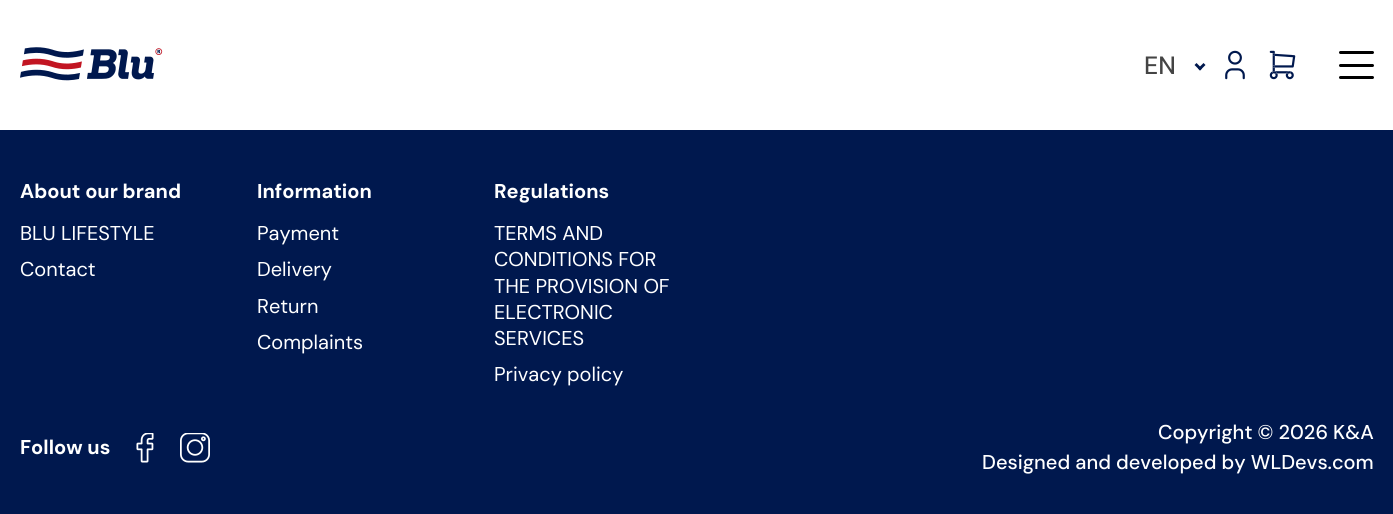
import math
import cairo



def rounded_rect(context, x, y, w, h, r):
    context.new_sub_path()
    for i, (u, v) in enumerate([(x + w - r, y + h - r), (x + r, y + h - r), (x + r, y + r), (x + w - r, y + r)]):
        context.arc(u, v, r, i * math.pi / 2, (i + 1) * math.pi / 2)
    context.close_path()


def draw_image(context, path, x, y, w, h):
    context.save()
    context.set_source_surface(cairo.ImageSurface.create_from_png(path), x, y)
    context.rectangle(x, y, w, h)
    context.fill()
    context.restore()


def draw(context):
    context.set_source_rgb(0, 24 / 255, 78 / 255)
    context.paint()
    context.set_source_rgb(1, 1, 1)
    context.rectangle(0, 0, 1393, 130)
    context.fill()
    draw_image(context, "images/1.png", 20, 47, 143, 34)
    context.set_source_rgb(0, 24 / 255, 78 / 255)
    context.new_path()
    context.move_to(1203.5, 63)
    context.line_to(1205.5, 65)
    context.line_to(1200, 70.5)
    context.line_to(1198, 68.5)
    context.close_path()
    context.fill()
    context.new_path()
    context.move_to(1196.5, 63)
    context.line_to(1202, 68.5)
    context.line_to(1200, 70.5)
    context.line_to(1194.5, 65)
    context.close_path()
    context.fill()
    draw_image(context, "images/2.png", 1225, 50, 20, 30)
    draw_image(context, "images/3.png", 1269, 50, 27, 30)
    context.set_source_rgb(0, 0, 0)
    rounded_rect(context, 1339, 64, 35, 3, 1.5)
    context.fill()
    rounded_rect(context, 1339, 51, 35, 3, 1.5)
    context.fill()
    rounded_rect(context, 1339, 76, 35, 3, 1.5)
    context.fill()
    draw_image(context, "images/4.png", 136, 433, 18, 30)
    draw_image(context, "images/5.png", 180, 433, 30, 30)
    context.select_font_face("DM Sans Medium")
    context.set_font_size(25)
    context.set_source_rgb(68 / 255, 68 / 255, 68 / 255)
    context.move_to(1144, 74)
    context.show_text("EN")
    context.select_font_face("DM Sans", cairo.FontSlant.NORMAL, cairo.FontWeight.BOLD)
    context.set_font_size(20)
    context.set_source_rgb(1, 1, 1)
    context.move_to(20, 198)
    context.show_text("About our brand")
    context.select_font_face("DM Sans")
    context.move_to(20, 240)
    context.show_text("BLU LIFESTYLE")
    context.move_to(20, 276)
    context.show_text("Contact")
    context.select_font_face("DM Sans", cairo.FontSlant.NORMAL, cairo.FontWeight.BOLD)
    context.move_to(257, 198)
    context.show_text("Information")
    context.select_font_face("DM Sans")
    context.move_to(257, 240)
    context.show_text("Payment")
    context.move_to(257, 276)
    context.show_text("Delivery")
    context.move_to(257, 313)
    context.show_text("Return")
    context.move_to(257, 349)
    context.show_text("Complaints")
    context.select_font_face("DM Sans", cairo.FontSlant.NORMAL, cairo.FontWeight.BOLD)
    context.move_to(494, 198)
    context.show_text("Regulations")
    context.select_font_face("DM Sans")
    context.move_to(494, 240)
    context.show_text("TERMS AND")
    context.move_to(494, 266)
    context.show_text("CONDITIONS FOR")
    context.move_to(494, 293)
    context.show_text("THE PROVISION OF")
    context.move_to(494, 319)
    context.show_text("ELECTRONIC")
    context.move_to(494, 345)
    context.show_text("SERVICES")
    context.move_to(494, 381)
    context.show_text("Privacy policy")
    context.select_font_face("DM Sans", cairo.FontSlant.NORMAL, cairo.FontWeight.BOLD)
    context.move_to(20, 454)
    context.show_text("Follow us")
    context.select_font_face("DM Sans Medium")
    context.move_to(1158, 439)
    context.show_text("Copyright © 2026 K&A")
    context.move_to(982, 469)
    context.show_text("Designed and developed by WLDevs.com")


surface = cairo.ImageSurface(cairo.Format.RGB24, 1393, 514)
context = cairo.Context(surface)
options = cairo.FontOptions()
options.set_hint_metrics(cairo.HintMetrics.OFF)
options.set_hint_style(cairo.HintStyle.NONE)
context.set_font_options(options)
context.set_miter_limit(4)
draw(context)
surface.write_to_png("out.png")
